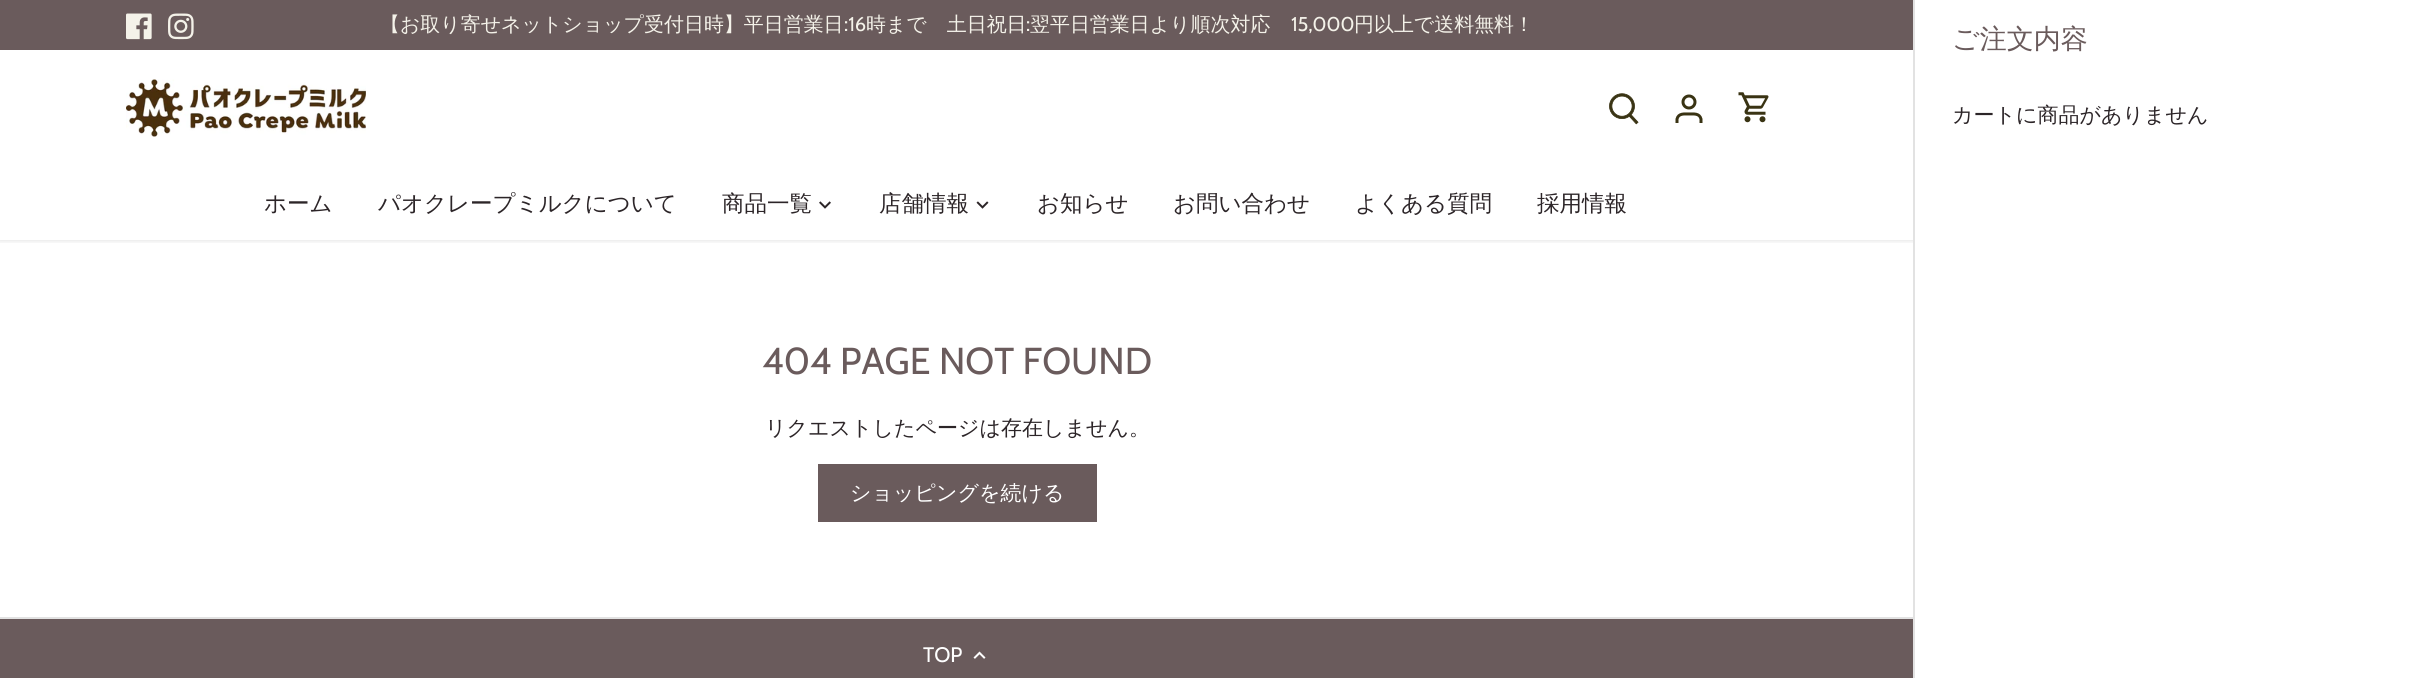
import math
import cairo



def rounded_rect(context, x, y, w, h, r):
    context.new_sub_path()
    for i, (u, v) in enumerate([(x + w - r, y + h - r), (x + r, y + h - r), (x + r, y + r), (x + w - r, y + r)]):
        context.arc(u, v, r, i * math.pi / 2, (i + 1) * math.pi / 2)
    context.close_path()


def draw_shadow(context, x, y, w, h, r, blur, alpha):
    context.push_group_with_content(cairo.Content.ALPHA)
    context.set_operator(cairo.Operator.SOURCE)
    for i in range(15, -16, -2):
        e = blur * i / 6
        if min(w, h) + 2 * e > 0:
            context.set_source_rgba(0, 0, 0, alpha * math.erfc((i - 1) / 8.5) / 2)
            rounded_rect(context, x - e, y - e, w + 2 * e, h + 2 * e, max(0, min(r + e + blur * .6, min(w, h) / 2 + e)))
            context.fill()
    context.mask(context.pop_group())


def draw_image(context, path, x, y, w, h):
    context.save()
    context.set_source_surface(cairo.ImageSurface.create_from_png(path), x, y)
    context.rectangle(x, y, w, h)
    context.fill()
    context.restore()


def draw(context):
    context.set_source_rgb(106 / 255, 91 / 255, 92 / 255)
    context.paint()
    context.set_source_rgb(1, 1, 1)
    context.rectangle(0, 50, 1913, 567)
    context.fill()
    context.save()
    context.rectangle(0, 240, 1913, 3)
    context.clip()
    context.set_source_rgb(0, 0, 0)
    draw_shadow(context, -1, 48, 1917, 194, 0, 2, 0.08)
    context.restore()
    context.set_source_rgb(106 / 255, 91 / 255, 92 / 255)
    context.rectangle(0, 47, 1913, 3)
    context.fill()
    draw_image(context, "images/1.png", 126, 13, 26, 27)
    draw_image(context, "images/2.png", 168, 13, 26, 27)
    draw_image(context, "images/3.png", 126, 79, 240, 58)
    draw_image(context, "images/4.png", 1609, 93, 30, 32)
    context.arc(1689, 102, 6, 0, 2 * math.pi)
    context.set_source_rgb(57 / 255, 51 / 255, 19 / 255)
    context.set_line_width(3)
    context.stroke()
    context.new_path()
    context.move_to(1701, 123)
    context.line_to(1701, 119)
    context.curve_to(1699.5, 113, 1693.5, 114, 1689, 114)
    context.curve_to(1684.5, 114, 1678.5, 113, 1677, 119)
    context.line_to(1677, 123)
    context.stroke()
    draw_image(context, "images/5.png", 1738, 92, 31, 31)
    draw_image(context, "images/6.png", 819, 201, 12, 8)
    draw_image(context, "images/7.png", 976, 201, 13, 8)
    context.set_source_rgb(106 / 255, 91 / 255, 92 / 255)
    context.rectangle(818, 464, 279, 58)
    context.fill()
    context.set_source_rgb(226 / 255, 226 / 255, 226 / 255)
    context.rectangle(0, 617, 1914, 2)
    context.fill()
    draw_image(context, "images/8.png", 973, 651, 13, 8)
    context.set_source_rgb(1, 1, 1)
    context.rectangle(1915, 0, 508, 678)
    context.fill()
    context.set_source_rgb(226 / 255, 226 / 255, 226 / 255)
    context.rectangle(1913, 0, 2, 678)
    context.fill()
    context.select_font_face("WenQuanYi Zen Hei Medium")
    context.set_font_size(19.95)
    context.set_source_rgb(244 / 255, 242 / 255, 233 / 255)
    context.move_to(380, 31)
    context.show_text("【お取り寄せネットショップ受付日時】平日営業日")
    context.select_font_face("Cabin")
    context.move_to(844, 31)
    context.show_text(":16")
    context.select_font_face("WenQuanYi Zen Hei Medium")
    context.move_to(866, 31)
    context.show_text("時まで　土日祝日")
    context.select_font_face("Cabin")
    context.move_to(1026, 31)
    context.show_text(":")
    context.select_font_face("WenQuanYi Zen Hei Medium")
    context.move_to(1030, 31)
    context.show_text("翌平日営業日より順次対応")
    context.select_font_face("Cabin")
    context.move_to(1291, 31)
    context.show_text("15,000")
    context.select_font_face("WenQuanYi Zen Hei Medium")
    context.move_to(1354, 31)
    context.show_text("円以上で送料無料！")
    context.set_font_size(22.5)
    context.set_source_rgb(44 / 255, 37 / 255, 40 / 255)
    context.move_to(264, 211)
    context.show_text("ホーム")
    context.move_to(378, 211)
    context.show_text("パオクレープミルクについて")
    context.move_to(722, 211)
    context.show_text("商品一覧")
    context.move_to(879, 211)
    context.show_text("店舗情報")
    context.move_to(1037, 211)
    context.show_text("お知らせ")
    context.move_to(1173, 211)
    context.show_text("お問い合わせ")
    context.move_to(1355, 211)
    context.show_text("よくある質問")
    context.move_to(1537, 211)
    context.show_text("採用情報")
    context.select_font_face("Cabin")
    context.set_font_size(37.5)
    context.set_source_rgb(106 / 255, 91 / 255, 92 / 255)
    context.move_to(762, 374)
    context.show_text("404 PAGE NOT FOUND")
    context.select_font_face("WenQuanYi Zen Hei Medium")
    context.set_font_size(21)
    context.set_source_rgb(44 / 255, 37 / 255, 40 / 255)
    context.move_to(765, 435)
    context.show_text("リクエストしたページは存在しません。")
    context.set_source_rgb(1, 1, 1)
    context.move_to(850, 500)
    context.show_text("ショッピングを続ける")
    context.select_font_face("Cabin")
    context.move_to(923, 662)
    context.show_text("TOP")
    context.select_font_face("WenQuanYi Zen Hei Medium")
    context.set_font_size(27)
    context.set_source_rgb(106 / 255, 91 / 255, 92 / 255)
    context.move_to(1952, 48)
    context.show_text("ご注文内容")
    context.set_font_size(21)
    context.set_source_rgb(44 / 255, 37 / 255, 40 / 255)
    context.move_to(1952, 122)
    context.show_text("カートに商品がありません")


surface = cairo.ImageSurface(cairo.Format.RGB24, 2423, 678)
context = cairo.Context(surface)
options = cairo.FontOptions()
options.set_hint_metrics(cairo.HintMetrics.OFF)
options.set_hint_style(cairo.HintStyle.NONE)
context.set_font_options(options)
context.set_miter_limit(4)
draw(context)
surface.write_to_png("out.png")
